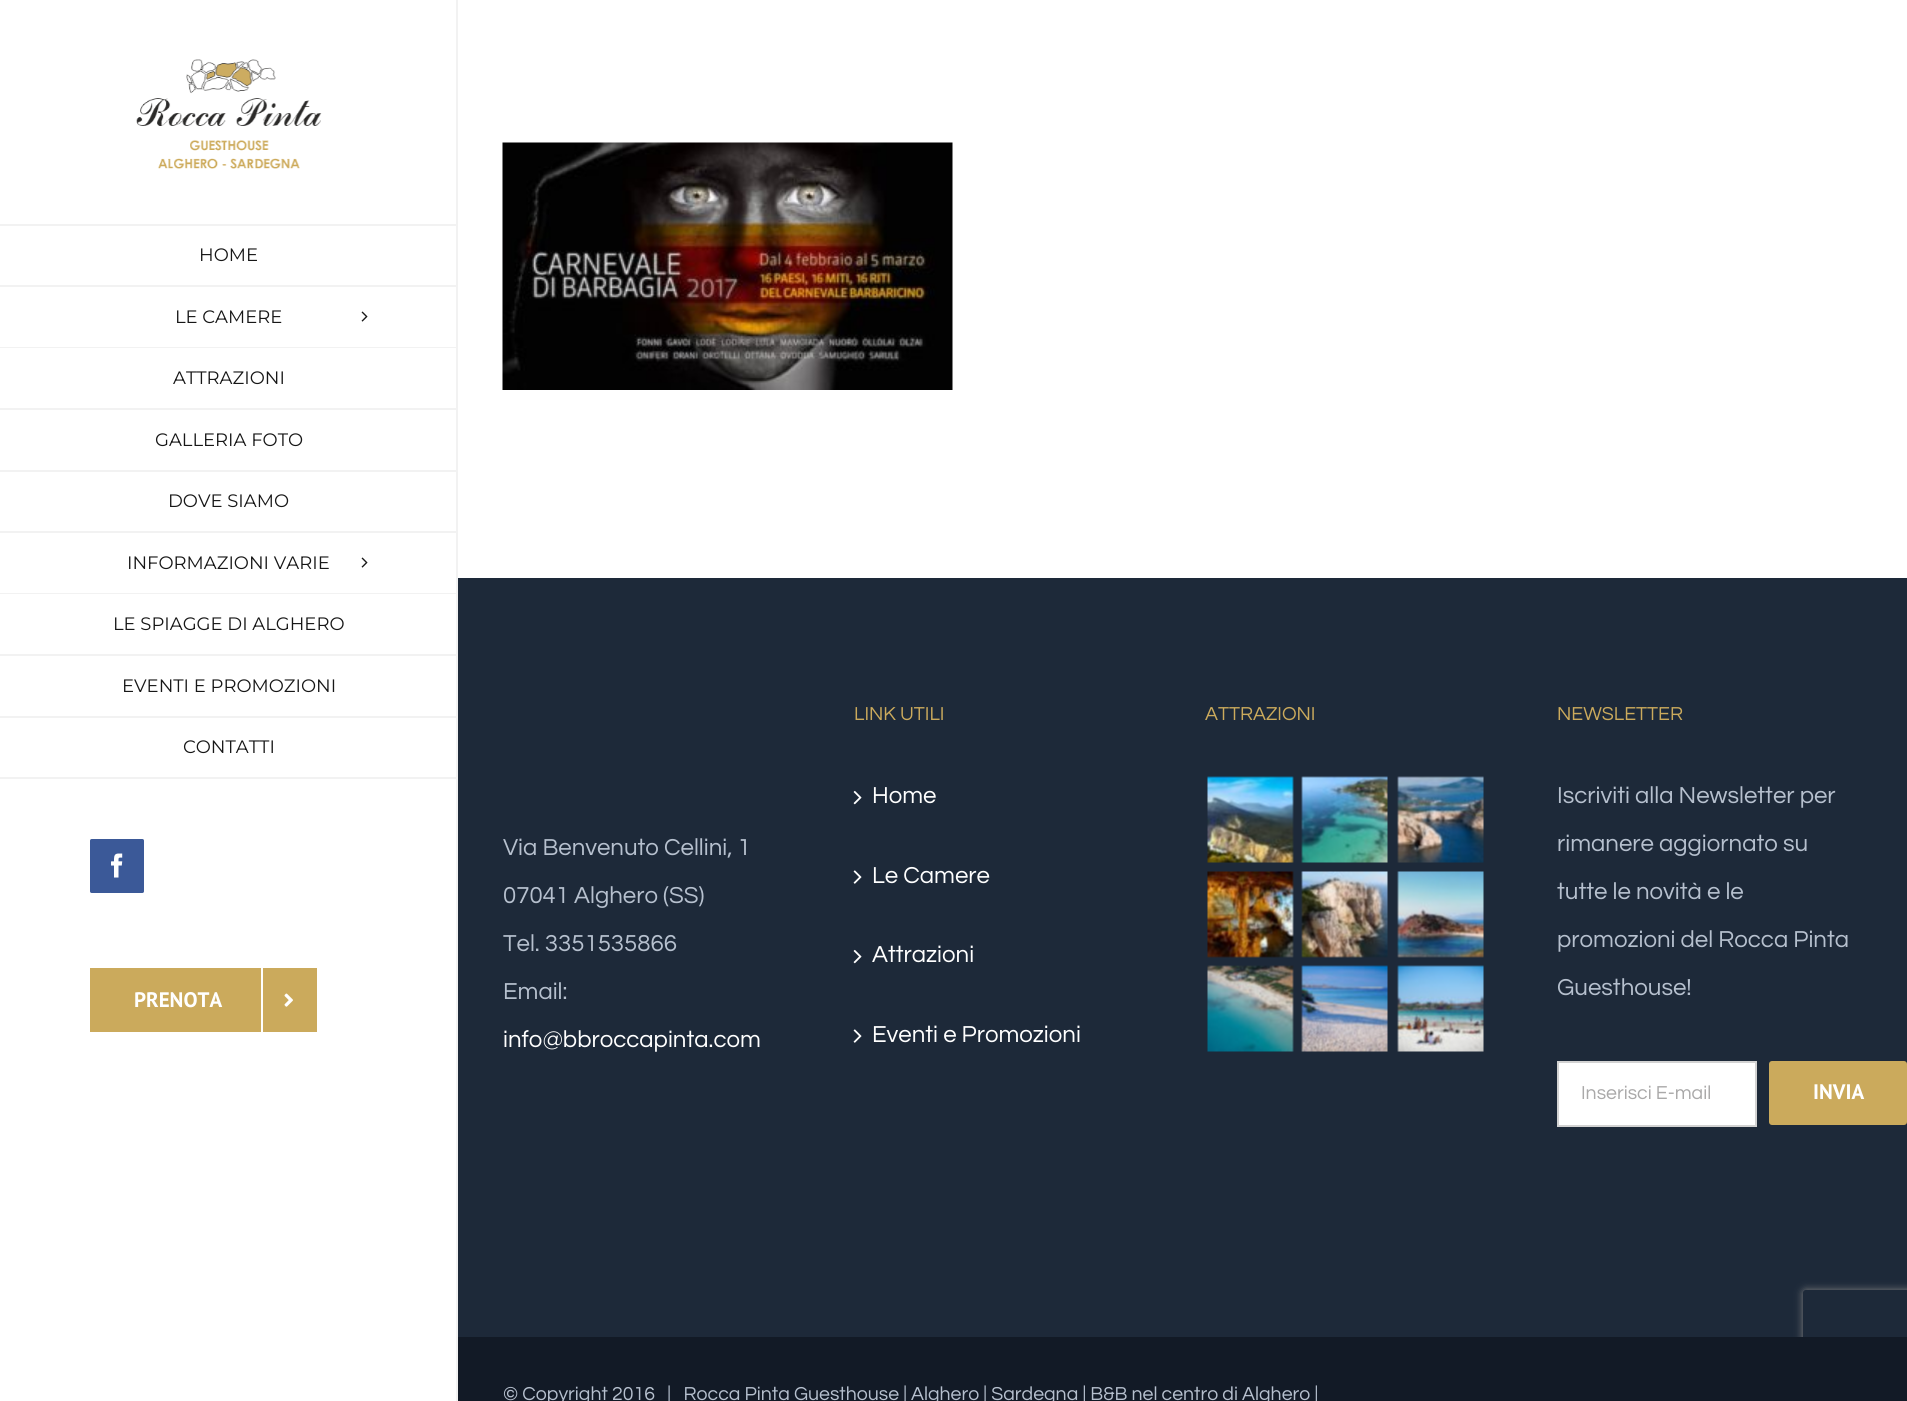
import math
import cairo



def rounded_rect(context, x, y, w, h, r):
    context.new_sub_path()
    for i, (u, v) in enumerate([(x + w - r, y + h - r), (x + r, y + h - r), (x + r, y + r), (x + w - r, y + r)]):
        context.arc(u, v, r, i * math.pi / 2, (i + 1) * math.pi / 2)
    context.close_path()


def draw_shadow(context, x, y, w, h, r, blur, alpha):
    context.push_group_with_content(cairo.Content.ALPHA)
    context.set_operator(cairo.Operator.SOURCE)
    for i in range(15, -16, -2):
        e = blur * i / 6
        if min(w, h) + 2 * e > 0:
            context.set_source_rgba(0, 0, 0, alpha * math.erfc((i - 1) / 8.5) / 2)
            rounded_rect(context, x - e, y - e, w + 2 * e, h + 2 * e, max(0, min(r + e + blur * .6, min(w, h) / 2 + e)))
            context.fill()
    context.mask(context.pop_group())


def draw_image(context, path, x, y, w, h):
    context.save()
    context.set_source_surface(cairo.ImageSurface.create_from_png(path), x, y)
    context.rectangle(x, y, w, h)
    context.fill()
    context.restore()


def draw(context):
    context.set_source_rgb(1, 1, 1)
    context.paint()
    draw_image(context, "images/1.png", 136, 59, 186, 110)
    context.set_source_rgb(242 / 255, 242 / 255, 242 / 255)
    context.rectangle(456, 0, 2, 1401)
    context.fill()
    context.rectangle(0, 224, 458, 2)
    context.fill()
    context.rectangle(0, 285, 458, 2)
    context.fill()
    context.rectangle(0, 347, 458, 1)
    context.fill()
    draw_image(context, "images/2.png", 361, 311, 7, 11)
    context.rectangle(0, 408, 458, 2)
    context.fill()
    context.rectangle(0, 470, 458, 2)
    context.fill()
    context.rectangle(0, 531, 458, 2)
    context.fill()
    context.rectangle(0, 593, 458, 1)
    context.fill()
    draw_image(context, "images/2.png", 361, 557, 7, 11)
    context.rectangle(0, 654, 458, 2)
    context.fill()
    context.rectangle(0, 716, 458, 2)
    context.fill()
    context.rectangle(0, 777, 458, 2)
    context.fill()
    context.set_source_rgb(59 / 255, 89 / 255, 152 / 255)
    rounded_rect(context, 91, 840, 52, 52, 0.5)
    context.fill_preserve()
    context.stroke()
    draw_image(context, "images/3.png", 111, 853, 12, 25)
    context.set_source_rgb(203 / 255, 170 / 255, 92 / 255)
    context.rectangle(90, 968, 227, 64)
    context.fill()
    context.set_source_rgb(1, 1, 1)
    context.rectangle(261, 968, 2, 64)
    context.fill()
    draw_image(context, "images/4.png", 284, 993, 9, 14)
    draw_image(context, "images/5.png", 502, 142, 451, 248)
    context.set_source_rgb(29 / 255, 41 / 255, 57 / 255)
    context.rectangle(458, 578, 1449, 759)
    context.fill()
    draw_image(context, "images/6.png", 853, 790, 9, 15)
    draw_image(context, "images/7.png", 853, 870, 9, 14)
    draw_image(context, "images/6.png", 853, 949, 9, 15)
    draw_image(context, "images/7.png", 853, 1029, 9, 14)
    draw_image(context, "images/8.png", 1207, 776, 87, 87)
    draw_image(context, "images/9.png", 1301, 776, 87, 87)
    draw_image(context, "images/10.png", 1397, 776, 87, 87)
    draw_image(context, "images/11.png", 1207, 871, 87, 87)
    draw_image(context, "images/12.png", 1301, 871, 87, 87)
    draw_image(context, "images/13.png", 1397, 871, 87, 87)
    draw_image(context, "images/14.png", 1207, 965, 87, 87)
    draw_image(context, "images/15.png", 1301, 965, 87, 87)
    draw_image(context, "images/16.png", 1397, 965, 87, 87)
    context.set_source_rgb(1, 1, 1)
    context.rectangle(1558, 1062, 198, 64)
    context.fill_preserve()
    context.set_source_rgb(210 / 255, 210 / 255, 210 / 255)
    context.stroke()
    context.set_source_rgb(203 / 255, 170 / 255, 92 / 255)
    rounded_rect(context, 1769, 1061, 138, 64, 3)
    context.fill()
    context.save()
    context.set_fill_rule(cairo.FillRule.EVEN_ODD)
    context.new_path()
    context.move_to(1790, 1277)
    context.line_to(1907, 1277)
    context.line_to(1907, 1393)
    context.line_to(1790, 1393)
    context.close_path()
    context.move_to(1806, 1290)
    context.line_to(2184, 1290)
    context.curve_to(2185.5, 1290, 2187, 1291.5, 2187, 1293)
    context.line_to(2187, 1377)
    context.curve_to(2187, 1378.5, 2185.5, 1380, 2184, 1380)
    context.line_to(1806, 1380)
    context.curve_to(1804.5, 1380, 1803, 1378.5, 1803, 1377)
    context.line_to(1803, 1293)
    context.curve_to(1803, 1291.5, 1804.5, 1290, 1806, 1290)
    context.close_path()
    context.clip()
    context.set_source_rgb(128 / 255, 128 / 255, 128 / 255)
    draw_shadow(context, 1803, 1290, 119, 90, 3, 4, 1)
    context.restore()
    context.set_source_rgb(18 / 255, 26 / 255, 38 / 255)
    context.rectangle(458, 1337, 1449, 64)
    context.fill()
    context.select_font_face("Montserrat Thin")
    context.set_font_size(18)
    context.set_source_rgb(23 / 255, 23 / 255, 23 / 255)
    context.move_to(199, 261)
    context.show_text("HOME")
    context.move_to(175, 323)
    context.show_text("LE CAMERE")
    context.move_to(173, 384)
    context.show_text("ATTRAZIONI")
    context.move_to(155, 446)
    context.show_text("GALLERIA FOTO")
    context.move_to(168, 507)
    context.show_text("DOVE SIAMO")
    context.move_to(127, 569)
    context.show_text("INFORMAZIONI VARIE")
    context.move_to(113, 630)
    context.show_text("LE SPIAGGE DI ALGHERO")
    context.move_to(122, 692)
    context.show_text("EVENTI E PROMOZIONI")
    context.move_to(183, 753)
    context.show_text("CONTATTI")
    context.select_font_face("PT Sans", cairo.FontSlant.NORMAL, cairo.FontWeight.BOLD)
    context.set_font_size(21)
    context.set_source_rgb(1, 1, 1)
    context.move_to(134, 1007)
    context.show_text("PRENOTA")
    context.select_font_face("Questrial")
    context.set_font_size(24)
    context.set_source_rgb(182 / 255, 192 / 255, 206 / 255)
    context.move_to(503, 855)
    context.show_text("Via Benvenuto Cellini, 1")
    context.move_to(503, 903)
    context.show_text("07041 Alghero (SS)")
    context.move_to(503, 951)
    context.show_text("Tel. 3351535866")
    context.move_to(503, 999)
    context.show_text("Email:")
    context.set_source_rgb(1, 1, 1)
    context.move_to(503, 1047)
    context.show_text("info@bbroccapinta.com")
    context.set_font_size(19.5)
    context.set_source_rgb(203 / 255, 170 / 255, 92 / 255)
    context.move_to(854, 720)
    context.show_text("LINK UTILI")
    context.set_font_size(24)
    context.set_source_rgb(1, 1, 1)
    context.move_to(872, 803)
    context.show_text("Home")
    context.move_to(872, 883)
    context.show_text("Le Camere")
    context.move_to(872, 962)
    context.show_text("Attrazioni")
    context.move_to(872, 1042)
    context.show_text("Eventi e Promozioni")
    context.set_font_size(19.5)
    context.set_source_rgb(203 / 255, 170 / 255, 92 / 255)
    context.move_to(1205, 720)
    context.show_text("ATTRAZIONI")
    context.move_to(1557, 720)
    context.show_text("NEWSLETTER")
    context.set_font_size(24)
    context.set_source_rgb(182 / 255, 192 / 255, 206 / 255)
    context.move_to(1557, 803)
    context.show_text("Iscriviti alla Newsletter per")
    context.move_to(1557, 851)
    context.show_text("rimanere aggiornato su")
    context.move_to(1557, 899)
    context.show_text("tutte le novità e le")
    context.move_to(1557, 947)
    context.show_text("promozioni del Rocca Pinta")
    context.move_to(1557, 995)
    context.show_text("Guesthouse!")
    context.set_font_size(19.5)
    context.set_source_rgb(170 / 255, 169 / 255, 169 / 255)
    context.move_to(1581, 1099)
    context.show_text("Inserisci E-mail")
    context.select_font_face("PT Sans", cairo.FontSlant.NORMAL, cairo.FontWeight.BOLD)
    context.set_font_size(21)
    context.set_source_rgb(1, 1, 1)
    context.move_to(1813, 1099)
    context.show_text("INVIA")
    context.select_font_face("Questrial")
    context.set_font_size(19.5)
    context.set_source_rgb(182 / 255, 192 / 255, 206 / 255)
    context.move_to(503, 1400)
    context.show_text("© Copyright 2016   |   Rocca Pinta Guesthouse | Alghero | Sardegna | B&B nel centro di Alghero |")


surface = cairo.ImageSurface(cairo.Format.RGB24, 1907, 1401)
context = cairo.Context(surface)
options = cairo.FontOptions()
options.set_hint_metrics(cairo.HintMetrics.OFF)
options.set_hint_style(cairo.HintStyle.NONE)
context.set_font_options(options)
context.set_miter_limit(4)
draw(context)
surface.write_to_png("out.png")
